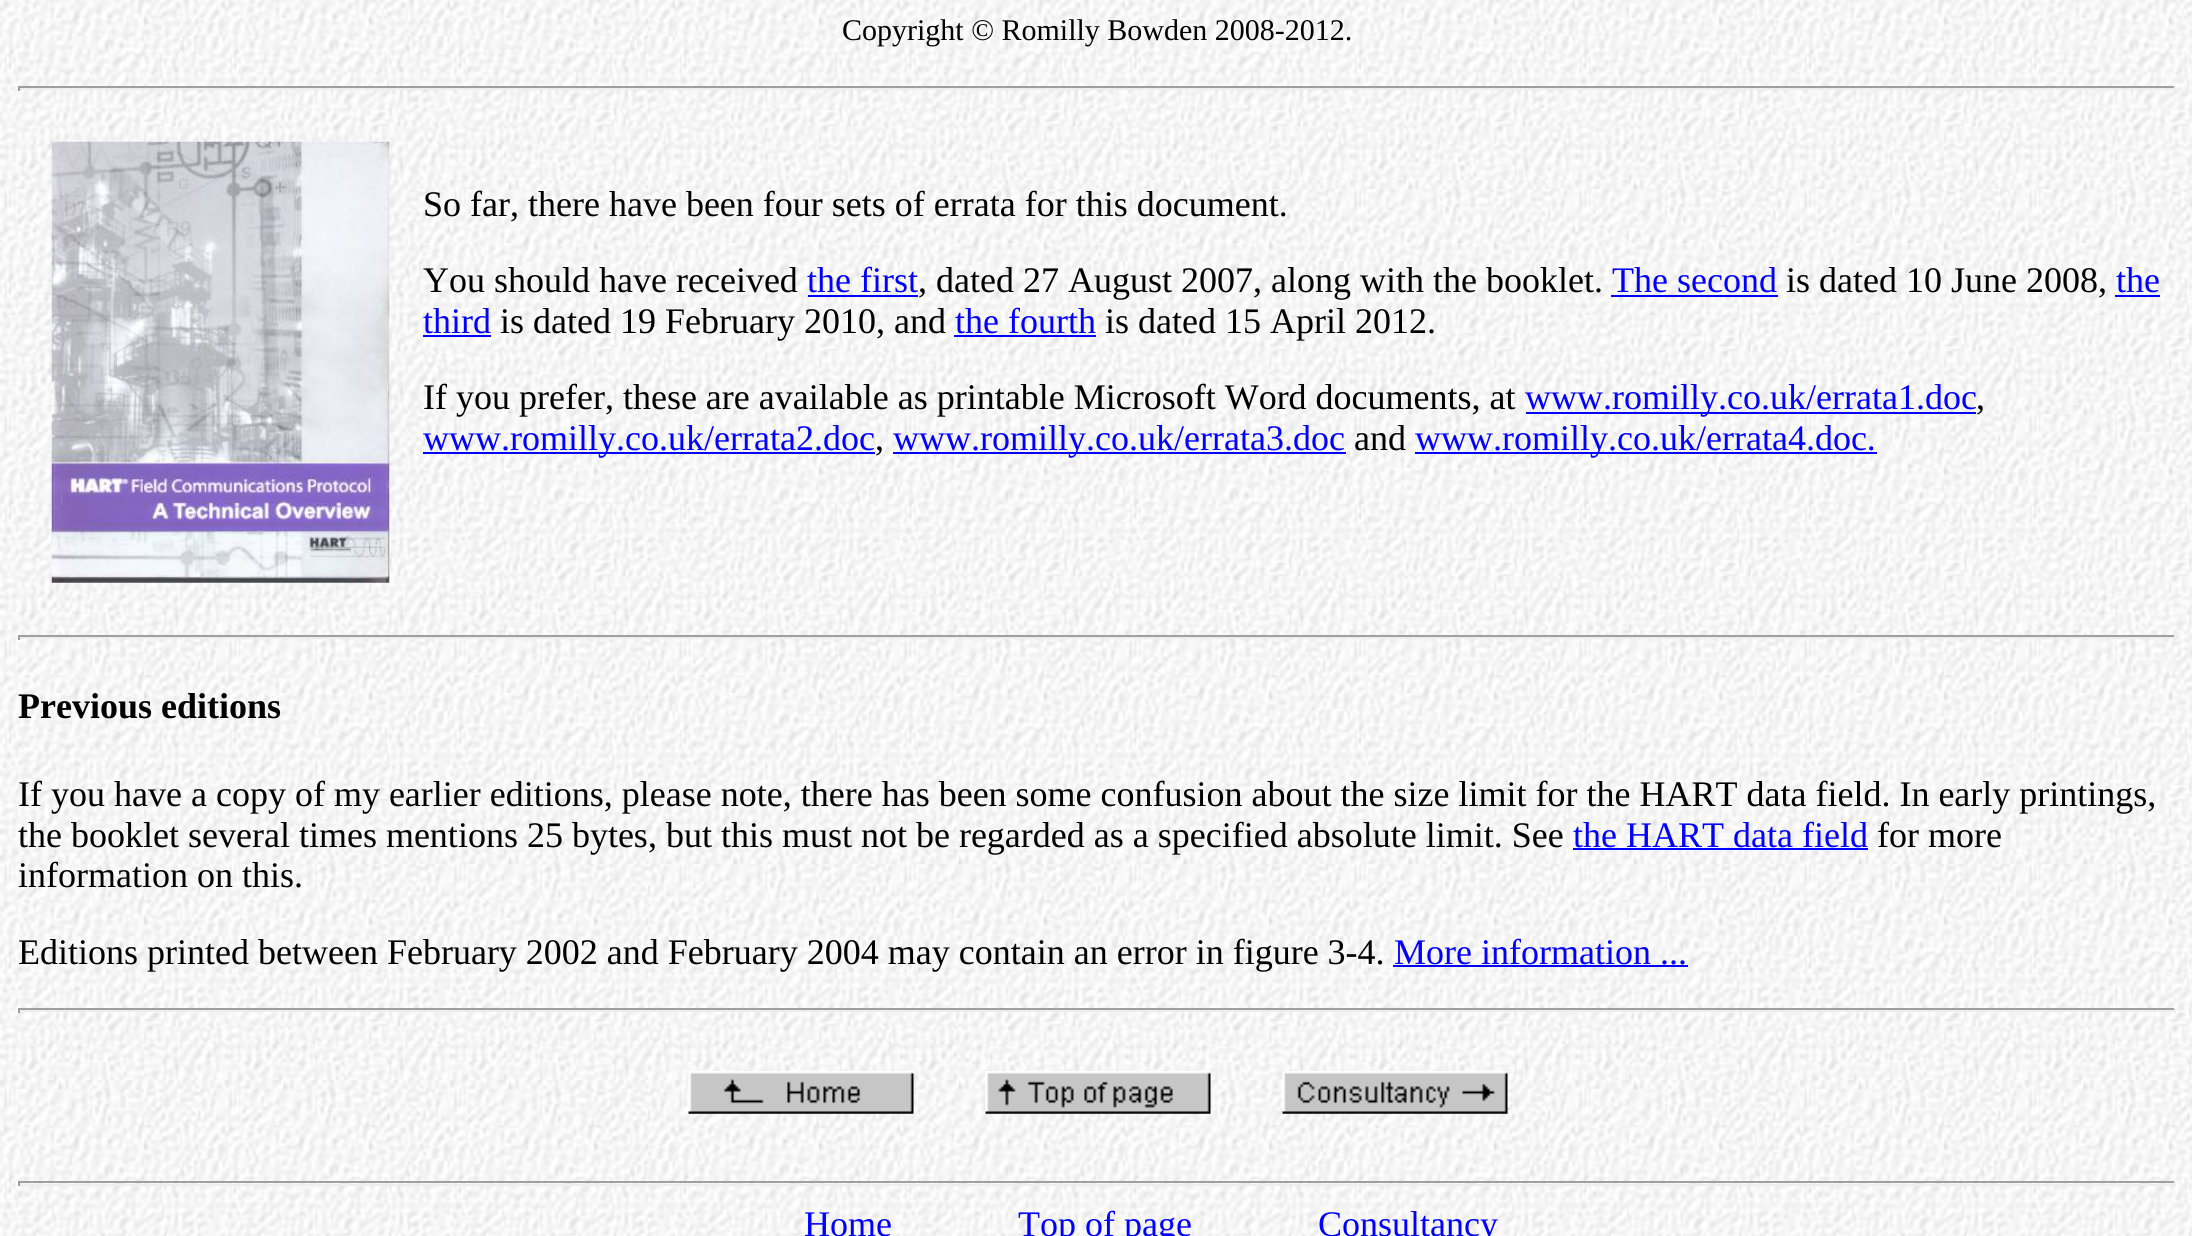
import math
import cairo



def draw_image(context, path, x, y, w, h):
    context.save()
    context.set_source_surface(cairo.ImageSurface.create_from_png(path), x, y)
    context.rectangle(x, y, w, h)
    context.fill()
    context.restore()


def draw(context):
    context.set_source_rgb(1, 1, 1)
    context.paint()
    draw_image(context, "images/1.png", 0, 0, 2192, 1236)
    context.set_source_rgb(159 / 255, 159 / 255, 159 / 255)
    context.rectangle(18, 86, 2158, 2)
    context.fill()
    context.set_source_rgb(238 / 255, 238 / 255, 238 / 255)
    context.rectangle(2174, 86, 2, 5)
    context.fill()
    context.rectangle(18, 88, 2158, 2)
    context.fill()
    context.set_source_rgb(159 / 255, 159 / 255, 159 / 255)
    context.rectangle(18, 86, 2, 5)
    context.fill()
    draw_image(context, "images/2.png", 51, 141, 339, 442)
    context.set_source_rgb(0, 0, 1)
    context.rectangle(808, 295, 110, 2)
    context.fill()
    context.rectangle(1611, 295, 167, 2)
    context.fill()
    context.rectangle(2115, 295, 45, 2)
    context.fill()
    context.rectangle(423, 335, 68, 2)
    context.fill()
    context.rectangle(954, 335, 142, 2)
    context.fill()
    context.rectangle(1526, 412, 450, 2)
    context.fill()
    context.rectangle(423, 452, 452, 2)
    context.fill()
    context.rectangle(893, 452, 453, 2)
    context.fill()
    context.rectangle(1415, 452, 462, 2)
    context.fill()
    context.set_source_rgb(159 / 255, 159 / 255, 159 / 255)
    context.rectangle(18, 635, 2158, 2)
    context.fill()
    context.set_source_rgb(238 / 255, 238 / 255, 238 / 255)
    context.rectangle(2174, 635, 2, 5)
    context.fill()
    context.rectangle(18, 637, 2158, 2)
    context.fill()
    context.set_source_rgb(159 / 255, 159 / 255, 159 / 255)
    context.rectangle(18, 635, 2, 5)
    context.fill()
    context.set_source_rgb(0, 0, 1)
    context.rectangle(1573, 848, 295, 2)
    context.fill()
    context.rectangle(1393, 965, 295, 2)
    context.fill()
    context.set_source_rgb(159 / 255, 159 / 255, 159 / 255)
    context.rectangle(18, 1008, 2158, 2)
    context.fill()
    context.set_source_rgb(238 / 255, 238 / 255, 238 / 255)
    context.rectangle(2174, 1008, 2, 5)
    context.fill()
    context.rectangle(18, 1010, 2158, 2)
    context.fill()
    context.set_source_rgb(159 / 255, 159 / 255, 159 / 255)
    context.rectangle(18, 1008, 2, 5)
    context.fill()
    draw_image(context, "images/3.png", 688, 1071, 226, 43)
    draw_image(context, "images/4.png", 985, 1071, 226, 43)
    draw_image(context, "images/5.png", 1282, 1071, 226, 43)
    context.rectangle(18, 1181, 2158, 2)
    context.fill()
    context.set_source_rgb(238 / 255, 238 / 255, 238 / 255)
    context.rectangle(2174, 1181, 2, 5)
    context.fill()
    context.rectangle(18, 1184, 2158, 2)
    context.fill()
    context.set_source_rgb(159 / 255, 159 / 255, 159 / 255)
    context.rectangle(18, 1181, 2, 5)
    context.fill()
    context.select_font_face("Liberation Serif")
    context.set_font_size(30)
    context.set_source_rgb(0, 0, 0)
    context.move_to(842, 40)
    context.show_text("Copyright © Romilly Bowden 2008-2012.")
    context.set_font_size(36)
    context.move_to(423, 216)
    context.show_text("So far, there have been four sets of errata for this document.")
    context.move_to(423, 292)
    context.show_text("You should have received")
    context.set_source_rgb(0, 0, 1)
    context.move_to(807, 292)
    context.show_text("the first")
    context.set_source_rgb(0, 0, 0)
    context.move_to(918, 292)
    context.show_text(", dated 27 August 2007, along with the booklet.")
    context.set_source_rgb(0, 0, 1)
    context.move_to(1612, 292)
    context.show_text("The second")
    context.set_source_rgb(0, 0, 0)
    context.move_to(1786, 292)
    context.show_text("is dated 10 June 2008,")
    context.set_source_rgb(0, 0, 1)
    context.move_to(2116, 292)
    context.show_text("the")
    context.move_to(423, 333)
    context.show_text("third")
    context.set_source_rgb(0, 0, 0)
    context.move_to(500, 333)
    context.show_text("is dated 19 February 2010, and")
    context.set_source_rgb(0, 0, 1)
    context.move_to(955, 333)
    context.show_text("the fourth")
    context.set_source_rgb(0, 0, 0)
    context.move_to(1105, 333)
    context.show_text("is dated 15 April 2012.")
    context.move_to(423, 409)
    context.show_text("If you prefer, these are available as printable Microsoft Word documents, at")
    context.set_source_rgb(0, 0, 1)
    context.move_to(1525, 409)
    context.show_text("www.romilly.co.uk/errata1.doc")
    context.set_source_rgb(0, 0, 0)
    context.move_to(1976, 409)
    context.show_text(",")
    context.set_source_rgb(0, 0, 1)
    context.move_to(423, 450)
    context.show_text("www.romilly.co.uk/errata2.doc")
    context.set_source_rgb(0, 0, 0)
    context.move_to(875, 450)
    context.show_text(",")
    context.set_source_rgb(0, 0, 1)
    context.move_to(893, 450)
    context.show_text("www.romilly.co.uk/errata3.doc")
    context.set_source_rgb(0, 0, 0)
    context.move_to(1354, 450)
    context.show_text("and")
    context.set_source_rgb(0, 0, 1)
    context.move_to(1415, 450)
    context.show_text("www.romilly.co.uk/errata4.doc.")
    context.select_font_face("Liberation Serif", cairo.FontSlant.NORMAL, cairo.FontWeight.BOLD)
    context.set_source_rgb(0, 0, 0)
    context.move_to(18, 718)
    context.show_text("Previous editions")
    context.select_font_face("Liberation Serif")
    context.move_to(18, 806)
    context.show_text("If you have a copy of my earlier editions, please note, there has been some confusion about the size limit for the HART data field. In early printings,")
    context.move_to(18, 847)
    context.show_text("the booklet several times mentions 25 bytes, but this must not be regarded as a specified absolute limit. See")
    context.set_source_rgb(0, 0, 1)
    context.move_to(1573, 847)
    context.show_text("the HART data field")
    context.set_source_rgb(0, 0, 0)
    context.move_to(1877, 847)
    context.show_text("for more")
    context.move_to(18, 887)
    context.show_text("information on this.")
    context.move_to(18, 964)
    context.show_text("Editions printed between February 2002 and February 2004 may contain an error in figure 3-4.")
    context.set_source_rgb(0, 0, 1)
    context.move_to(1394, 964)
    context.show_text("More information ...")
    context.move_to(804, 1236)
    context.show_text("Home")
    context.move_to(1018, 1236)
    context.show_text("Top of page")
    context.move_to(1318, 1236)
    context.show_text("Consultancy")


surface = cairo.ImageSurface(cairo.Format.RGB24, 2192, 1236)
context = cairo.Context(surface)
options = cairo.FontOptions()
options.set_hint_metrics(cairo.HintMetrics.OFF)
options.set_hint_style(cairo.HintStyle.NONE)
context.set_font_options(options)
context.set_miter_limit(4)
draw(context)
surface.write_to_png("out.png")
